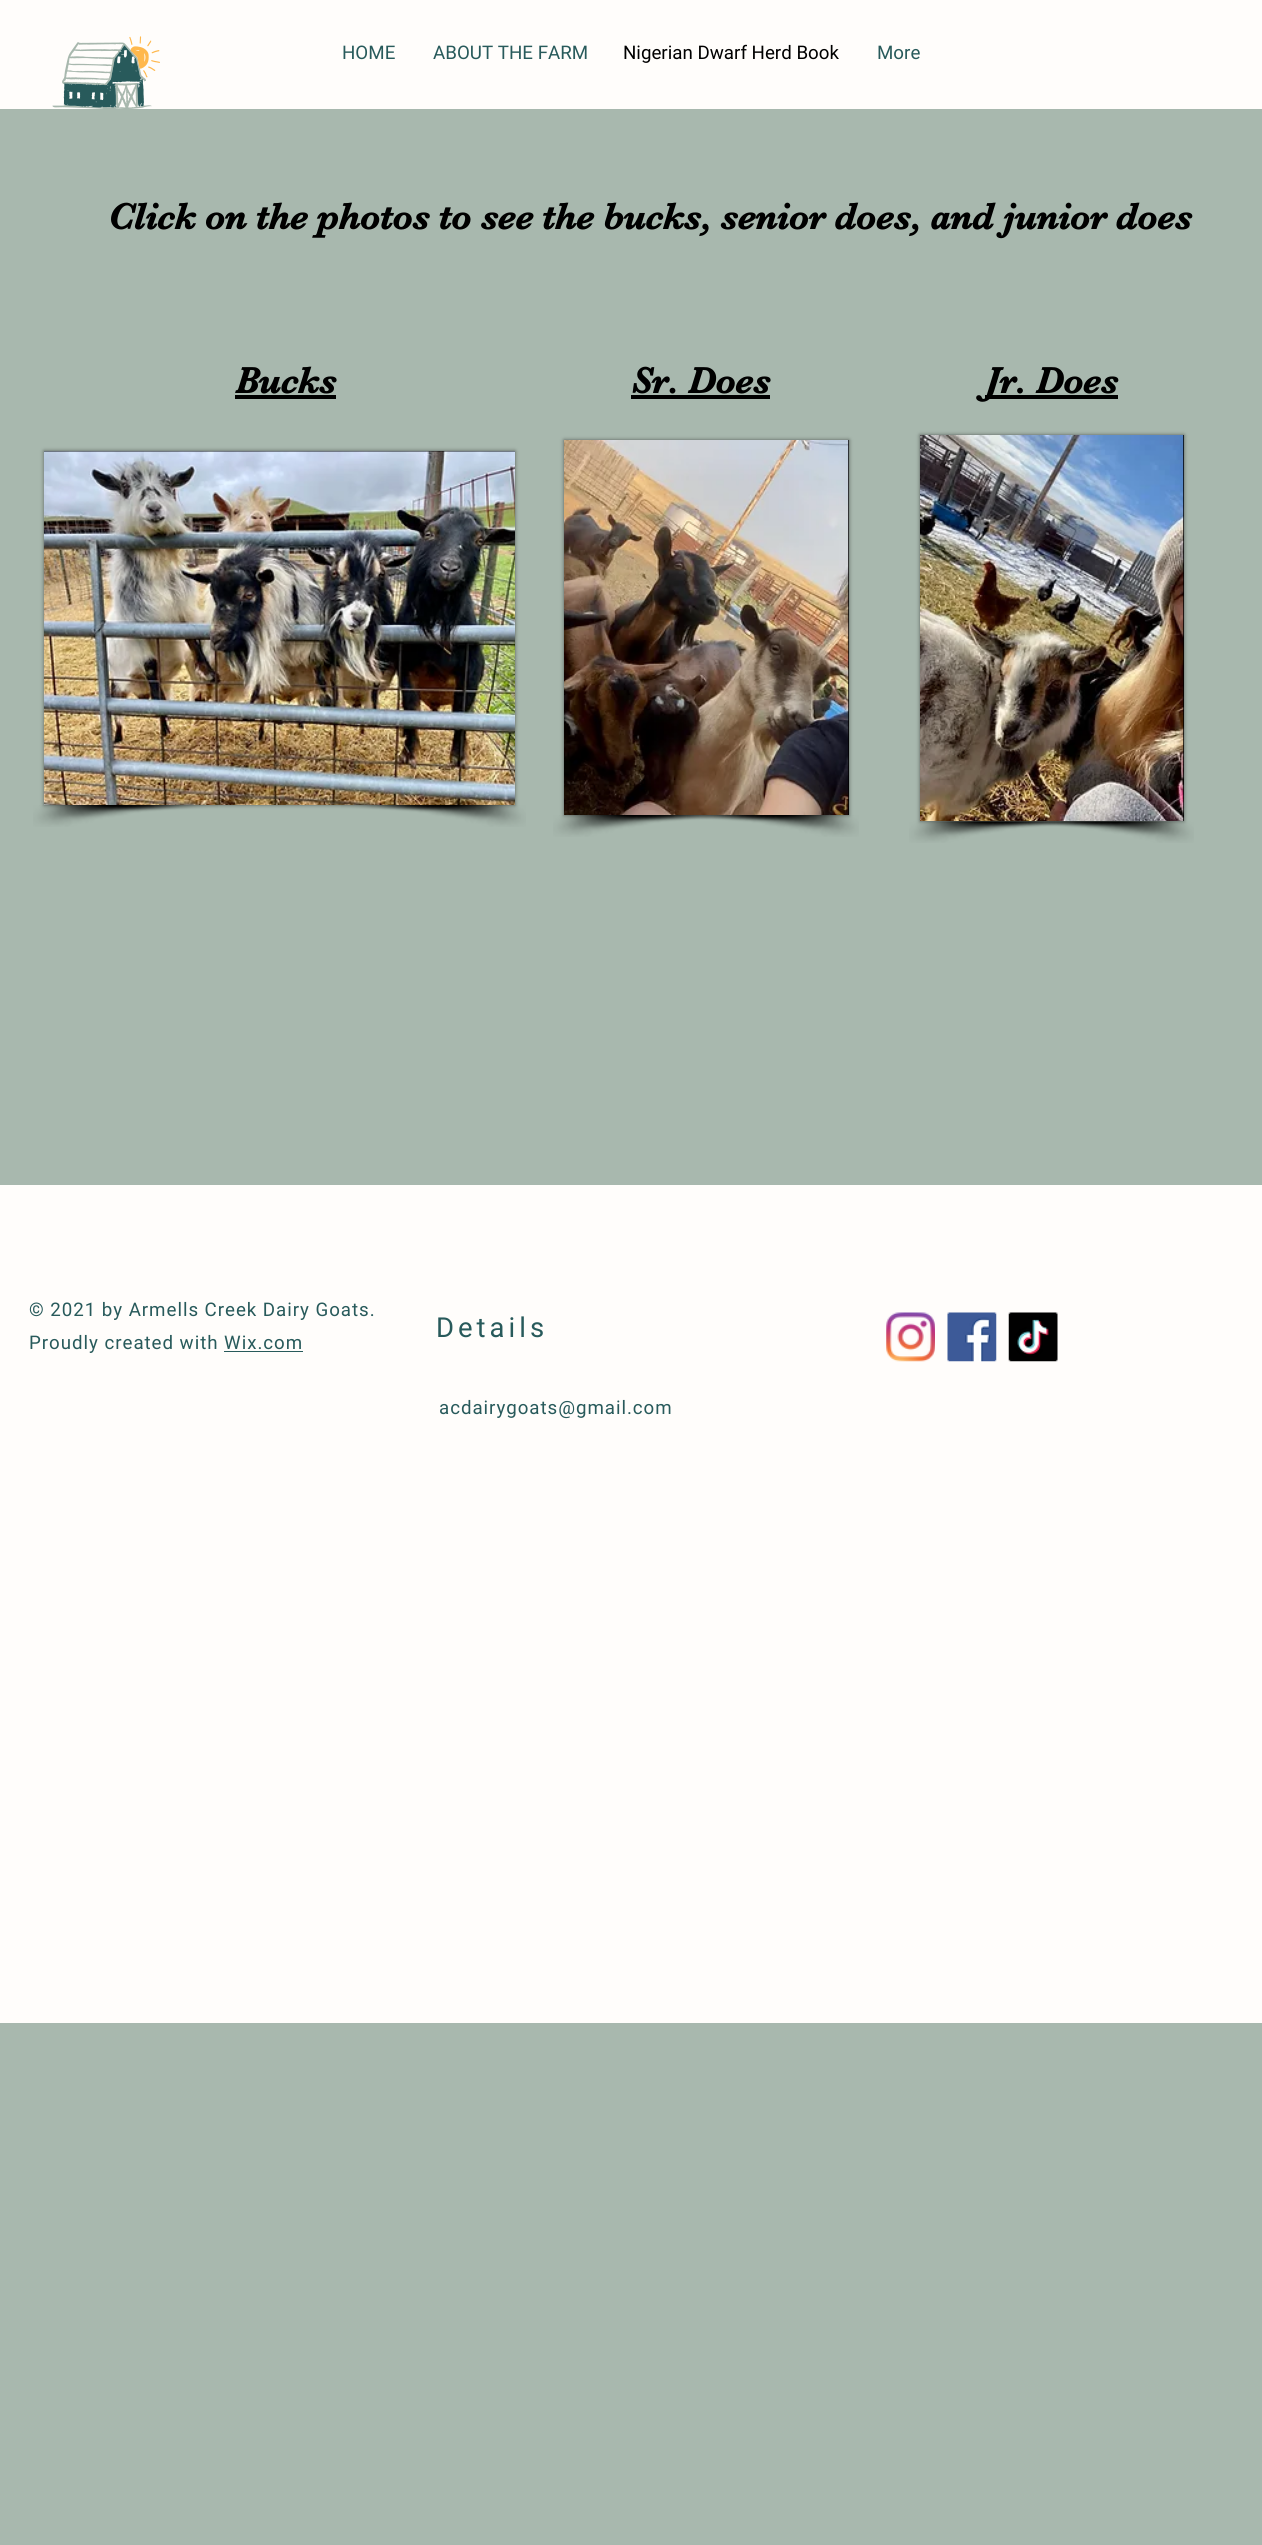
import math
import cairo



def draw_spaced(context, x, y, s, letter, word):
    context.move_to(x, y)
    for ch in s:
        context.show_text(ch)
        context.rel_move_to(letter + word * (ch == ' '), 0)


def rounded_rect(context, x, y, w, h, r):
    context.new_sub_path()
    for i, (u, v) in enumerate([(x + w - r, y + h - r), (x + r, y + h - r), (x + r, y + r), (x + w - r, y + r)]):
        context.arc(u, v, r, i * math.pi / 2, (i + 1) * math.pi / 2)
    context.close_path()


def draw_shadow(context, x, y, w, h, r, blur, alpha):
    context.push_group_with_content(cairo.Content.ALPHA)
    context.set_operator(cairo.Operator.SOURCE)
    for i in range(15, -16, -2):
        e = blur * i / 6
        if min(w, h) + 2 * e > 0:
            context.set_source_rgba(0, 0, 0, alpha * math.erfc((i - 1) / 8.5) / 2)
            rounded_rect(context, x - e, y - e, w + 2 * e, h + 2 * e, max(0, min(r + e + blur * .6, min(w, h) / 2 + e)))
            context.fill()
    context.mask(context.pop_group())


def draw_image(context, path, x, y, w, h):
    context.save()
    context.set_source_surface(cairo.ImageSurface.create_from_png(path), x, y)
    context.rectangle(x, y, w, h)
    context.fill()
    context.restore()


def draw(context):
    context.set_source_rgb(168 / 255, 184 / 255, 174 / 255)
    context.paint()
    context.set_source_rgb(1, 253 / 255, 251 / 255)
    context.rectangle(0, 0, 1262, 109)
    context.fill()
    draw_image(context, "images/1.png", 52, 36, 108, 73)
    context.set_source_rgb(0, 0, 0)
    context.rectangle(235, 395, 101, 4)
    context.fill()
    context.rectangle(631, 395, 139, 4)
    context.fill()
    context.rectangle(985, 395, 133, 4)
    context.fill()
    context.set_source_rgb(0, 0, 0)
    draw_shadow(context, 44, 451, 471, 354, 0, 2, 0.5)
    context.set_source_rgb(0, 0, 0)
    context.rectangle(44, 451, 471, 1)
    context.fill()
    draw_image(context, "images/2.png", 43, 451, 472, 354)
    draw_image(context, "images/3.png", 33, 805, 185, 22)
    draw_image(context, "images/4.png", 341, 805, 185, 22)
    context.set_source_rgb(0, 0, 0)
    draw_shadow(context, 564, 440, 285, 375, 0, 2, 0.5)
    context.set_source_rgb(0, 0, 0)
    context.rectangle(848, 440, 1, 375)
    context.fill()
    draw_image(context, "images/5.png", 564, 440, 285, 375)
    draw_image(context, "images/3.png", 553, 815, 185, 22)
    draw_image(context, "images/6.png", 687, 815, 172, 22)
    context.set_source_rgb(0, 0, 0)
    draw_shadow(context, 920, 435, 264, 386, 0, 2, 0.5)
    context.set_source_rgb(0, 0, 0)
    context.rectangle(1183, 435, 1, 386)
    context.fill()
    draw_image(context, "images/7.png", 920, 435, 264, 386)
    draw_image(context, "images/8.png", 909, 821, 182, 22)
    draw_image(context, "images/9.png", 1028, 821, 166, 22)
    context.set_source_rgb(1, 253 / 255, 251 / 255)
    context.rectangle(0, 1185, 1262, 838)
    context.fill()
    context.set_source_rgb(40 / 255, 90 / 255, 91 / 255)
    context.rectangle(224, 1351, 79, 1)
    context.fill()
    draw_image(context, "images/10.png", 886, 1312, 49, 50)
    draw_image(context, "images/11.png", 947, 1312, 50, 50)
    draw_image(context, "images/12.png", 1008, 1312, 50, 50)
    context.select_font_face("Roboto")
    context.set_font_size(18.75)
    context.move_to(342, 59)
    context.show_text("HOME")
    context.move_to(433, 59)
    context.show_text("ABOUT THE FARM")
    context.set_source_rgb(0, 0, 0)
    context.move_to(623, 59)
    context.show_text("Nigerian Dwarf Herd Book")
    context.set_source_rgb(40 / 255, 90 / 255, 91 / 255)
    context.move_to(877, 59)
    context.show_text("More")
    context.select_font_face("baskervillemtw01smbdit", cairo.FontSlant.NORMAL, cairo.FontWeight.BOLD)
    context.set_font_size(37.5)
    context.set_source_rgb(0, 0, 0)
    context.move_to(108, 229)
    context.show_text("Click on the photos to see the bucks, senior does, and junior does")
    context.move_to(235, 393)
    context.show_text("Bucks")
    context.move_to(631, 393)
    context.show_text("Sr. Does")
    context.move_to(985, 393)
    context.show_text("Jr. Does")
    context.select_font_face("Roboto")
    context.set_font_size(18.75)
    context.set_source_rgb(40 / 255, 90 / 255, 91 / 255)
    draw_spaced(context, 29, 1316, "© 2021 by Armells Creek Dairy Goats.", 0.95, 0)
    draw_spaced(context, 29, 1349, "Proudly created with Wix.com", 0.95, 0)
    context.set_font_size(27.5)
    draw_spaced(context, 436, 1337, "Details", 4, 0)
    context.set_font_size(18.75)
    draw_spaced(context, 439, 1414, "acdairygoats@gmail.com", 0.95, 0)


surface = cairo.ImageSurface(cairo.Format.RGB24, 1262, 2545)
context = cairo.Context(surface)
options = cairo.FontOptions()
options.set_hint_metrics(cairo.HintMetrics.OFF)
options.set_hint_style(cairo.HintStyle.NONE)
context.set_font_options(options)
context.set_miter_limit(4)
draw(context)
surface.write_to_png("out.png")
